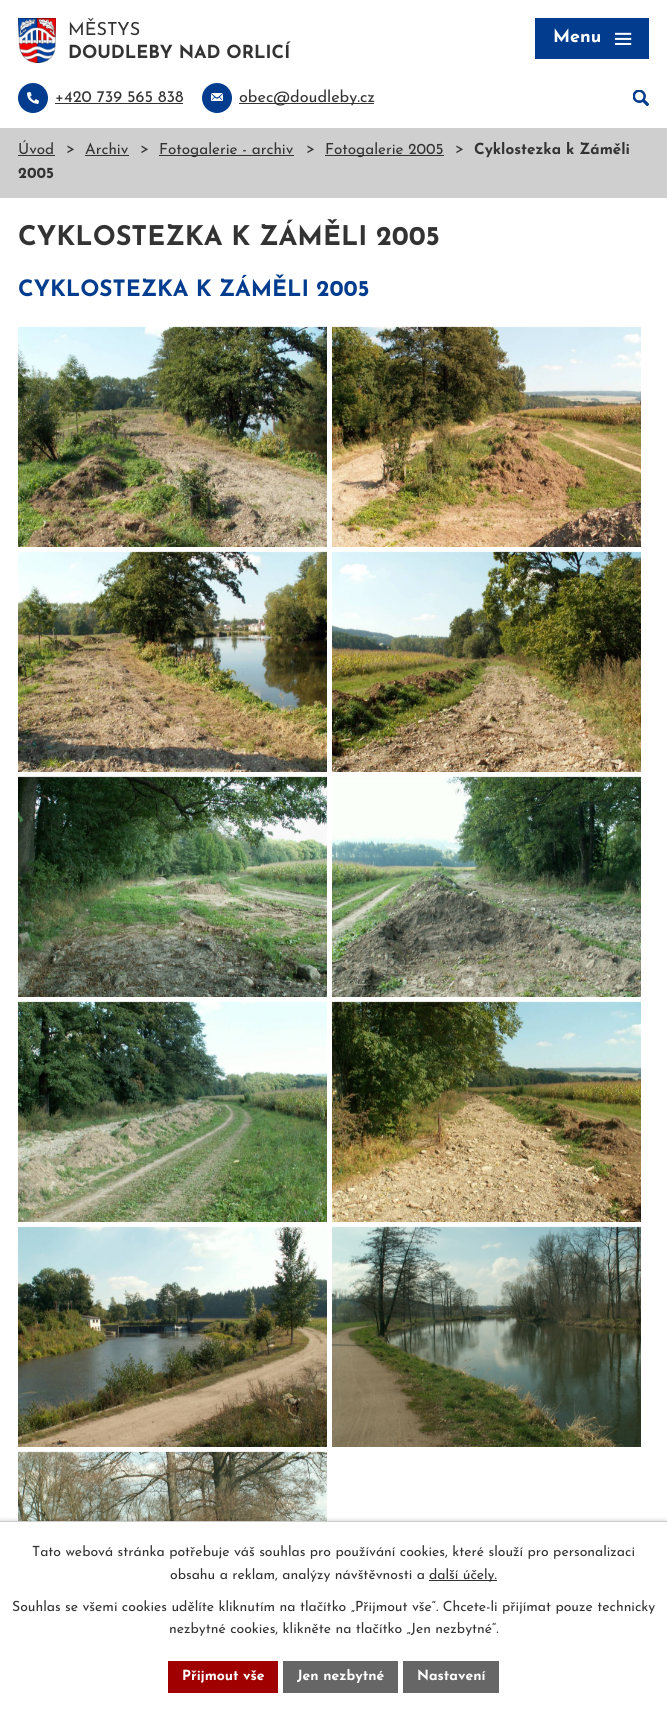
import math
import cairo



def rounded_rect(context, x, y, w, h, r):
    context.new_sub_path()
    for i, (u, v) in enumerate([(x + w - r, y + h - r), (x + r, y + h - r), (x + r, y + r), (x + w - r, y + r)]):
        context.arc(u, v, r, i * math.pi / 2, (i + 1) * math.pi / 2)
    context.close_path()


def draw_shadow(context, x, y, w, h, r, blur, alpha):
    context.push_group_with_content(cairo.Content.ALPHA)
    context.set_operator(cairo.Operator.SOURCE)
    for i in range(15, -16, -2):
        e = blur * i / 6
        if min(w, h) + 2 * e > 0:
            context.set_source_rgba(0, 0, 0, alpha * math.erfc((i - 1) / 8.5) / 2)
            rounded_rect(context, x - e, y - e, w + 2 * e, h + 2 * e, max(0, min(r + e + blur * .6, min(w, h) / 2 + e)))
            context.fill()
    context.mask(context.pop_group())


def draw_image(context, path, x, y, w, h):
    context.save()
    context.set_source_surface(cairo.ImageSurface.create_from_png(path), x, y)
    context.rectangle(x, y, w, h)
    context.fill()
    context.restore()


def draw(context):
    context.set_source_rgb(1, 1, 1)
    context.paint()
    draw_image(context, "images/1.png", 18, 18, 38, 45)
    context.set_source_rgb(2 / 255, 60 / 255, 142 / 255)
    context.arc(33, 98, 15, 0, 2 * math.pi)
    context.fill()
    context.set_source_rgb(51 / 255, 51 / 255, 51 / 255)
    context.rectangle(55, 103, 128, 1)
    context.fill()
    draw_image(context, "images/2.png", 27, 92, 12, 12)
    context.set_source_rgb(2 / 255, 60 / 255, 142 / 255)
    context.arc(217, 98, 15, 0, 2 * math.pi)
    context.fill()
    context.set_source_rgb(51 / 255, 51 / 255, 51 / 255)
    context.rectangle(239, 103, 135, 1)
    context.fill()
    draw_image(context, "images/3.png", 211, 93, 12, 8)
    draw_image(context, "images/4.png", 633, 90, 17, 17)
    context.set_source_rgb(2 / 255, 60 / 255, 142 / 255)
    context.rectangle(535, 18, 114, 41)
    context.fill()
    draw_image(context, "images/5.png", 615, 32, 17, 13)
    context.set_source_rgb(207 / 255, 207 / 255, 207 / 255)
    context.rectangle(0, 128, 667, 70)
    context.fill()
    context.set_source_rgb(51 / 255, 51 / 255, 51 / 255)
    context.rectangle(18, 155, 37, 1)
    context.fill()
    context.rectangle(85, 155, 44, 1)
    context.fill()
    context.rectangle(159, 155, 135, 1)
    context.fill()
    context.rectangle(325, 155, 119, 1)
    context.fill()
    draw_image(context, "images/6.png", 18, 326, 309, 221)
    draw_image(context, "images/7.png", 332, 326, 309, 221)
    draw_image(context, "images/8.png", 18, 551, 309, 221)
    draw_image(context, "images/9.png", 332, 551, 309, 221)
    draw_image(context, "images/10.png", 18, 776, 309, 221)
    draw_image(context, "images/11.png", 332, 776, 309, 221)
    draw_image(context, "images/12.png", 18, 1001, 309, 221)
    draw_image(context, "images/13.png", 332, 1001, 309, 221)
    draw_image(context, "images/14.png", 18, 1226, 309, 221)
    draw_image(context, "images/15.png", 332, 1226, 309, 221)
    draw_image(context, "images/16.png", 18, 1451, 309, 70)
    context.set_source_rgb(0, 0, 0)
    draw_shadow(context, 0, 1521, 667, 191, 0, 2.5, 0.2)
    context.set_source_rgb(1, 1, 1)
    context.rectangle(0, 1522, 667, 190)
    context.fill()
    context.set_source_rgb(204 / 255, 204 / 255, 204 / 255)
    context.rectangle(0, 1521, 667, 1)
    context.fill()
    context.set_source_rgb(51 / 255, 51 / 255, 51 / 255)
    context.rectangle(429, 1580, 68, 1)
    context.fill()
    context.set_source_rgb(160 / 255, 1 / 255, 0)
    context.rectangle(168, 1661, 110, 32)
    context.fill()
    context.set_source_rgb(102 / 255, 102 / 255, 102 / 255)
    context.rectangle(283, 1661, 115, 32)
    context.fill()
    context.rectangle(403, 1661, 96, 32)
    context.fill()
    context.select_font_face("Josefin Sans")
    context.set_font_size(18)
    context.set_source_rgb(51 / 255, 51 / 255, 51 / 255)
    context.move_to(68, 35)
    context.show_text("MĚSTYS")
    context.select_font_face("Josefin Sans", cairo.FontSlant.NORMAL, cairo.FontWeight.BOLD)
    context.move_to(68, 58)
    context.show_text("DOUDLEBY NAD ORLICÍ")
    context.select_font_face("Josefin Sans")
    context.set_font_size(16.25)
    context.move_to(55, 102)
    context.show_text("+420 739 565 838")
    context.move_to(239, 102)
    context.show_text("obec@doudleby.cz")
    context.select_font_face("Josefin Sans", cairo.FontSlant.NORMAL, cairo.FontWeight.BOLD)
    context.set_font_size(18)
    context.set_source_rgb(1, 1, 1)
    context.move_to(553, 42)
    context.show_text("Menu")
    context.select_font_face("Josefin Sans")
    context.set_font_size(15.25)
    context.set_source_rgb(51 / 255, 51 / 255, 51 / 255)
    context.move_to(18, 154)
    context.show_text("Úvod")
    context.move_to(66, 153)
    context.show_text(">")
    context.move_to(85, 154)
    context.show_text("Archiv")
    context.move_to(140, 153)
    context.show_text(">")
    context.move_to(159, 154)
    context.show_text("Fotogalerie - archiv")
    context.move_to(306, 153)
    context.show_text(">")
    context.move_to(325, 154)
    context.show_text("Fotogalerie 2005")
    context.move_to(455, 153)
    context.show_text(">")
    context.select_font_face("Josefin Sans", cairo.FontSlant.NORMAL, cairo.FontWeight.BOLD)
    context.move_to(474, 154)
    context.show_text("Cyklostezka k Záměli")
    context.move_to(18, 178)
    context.show_text("2005")
    context.set_font_size(27)
    context.move_to(18, 245)
    context.show_text("CYKLOSTEZKA K ZÁMĚLI 2005")
    context.set_font_size(22.5)
    context.set_source_rgb(2 / 255, 60 / 255, 142 / 255)
    context.move_to(18, 296)
    context.show_text("CYKLOSTEZKA K ZÁMĚLI 2005")
    context.select_font_face("Josefin Sans")
    context.set_font_size(14)
    context.set_source_rgb(51 / 255, 51 / 255, 51 / 255)
    context.move_to(32, 1556)
    context.show_text("Tato webová stránka potřebuje váš souhlas pro používání cookies, které slouží pro personalizaci")
    context.move_to(170, 1579)
    context.show_text("obsahu a reklam, analýzy návštěvnosti a")
    context.move_to(429, 1579)
    context.show_text("další účely.")
    context.move_to(12, 1611)
    context.show_text("Souhlas se všemi cookies udělíte kliknutím na tlačítko „Přijmout vše“. Chcete-li přijímat pouze technicky")
    context.move_to(169, 1633)
    context.show_text("nezbytné cookies, klikněte na tlačítko „Jen nezbytné“.")
    context.select_font_face("Josefin Sans", cairo.FontSlant.NORMAL, cairo.FontWeight.BOLD)
    context.set_source_rgb(1, 1, 1)
    context.move_to(182, 1680)
    context.show_text("Přijmout vše")
    context.move_to(297, 1680)
    context.show_text("Jen nezbytné")
    context.move_to(417, 1680)
    context.show_text("Nastavení")


surface = cairo.ImageSurface(cairo.Format.RGB24, 667, 1712)
context = cairo.Context(surface)
options = cairo.FontOptions()
options.set_hint_metrics(cairo.HintMetrics.OFF)
options.set_hint_style(cairo.HintStyle.NONE)
context.set_font_options(options)
context.set_miter_limit(4)
draw(context)
surface.write_to_png("out.png")
